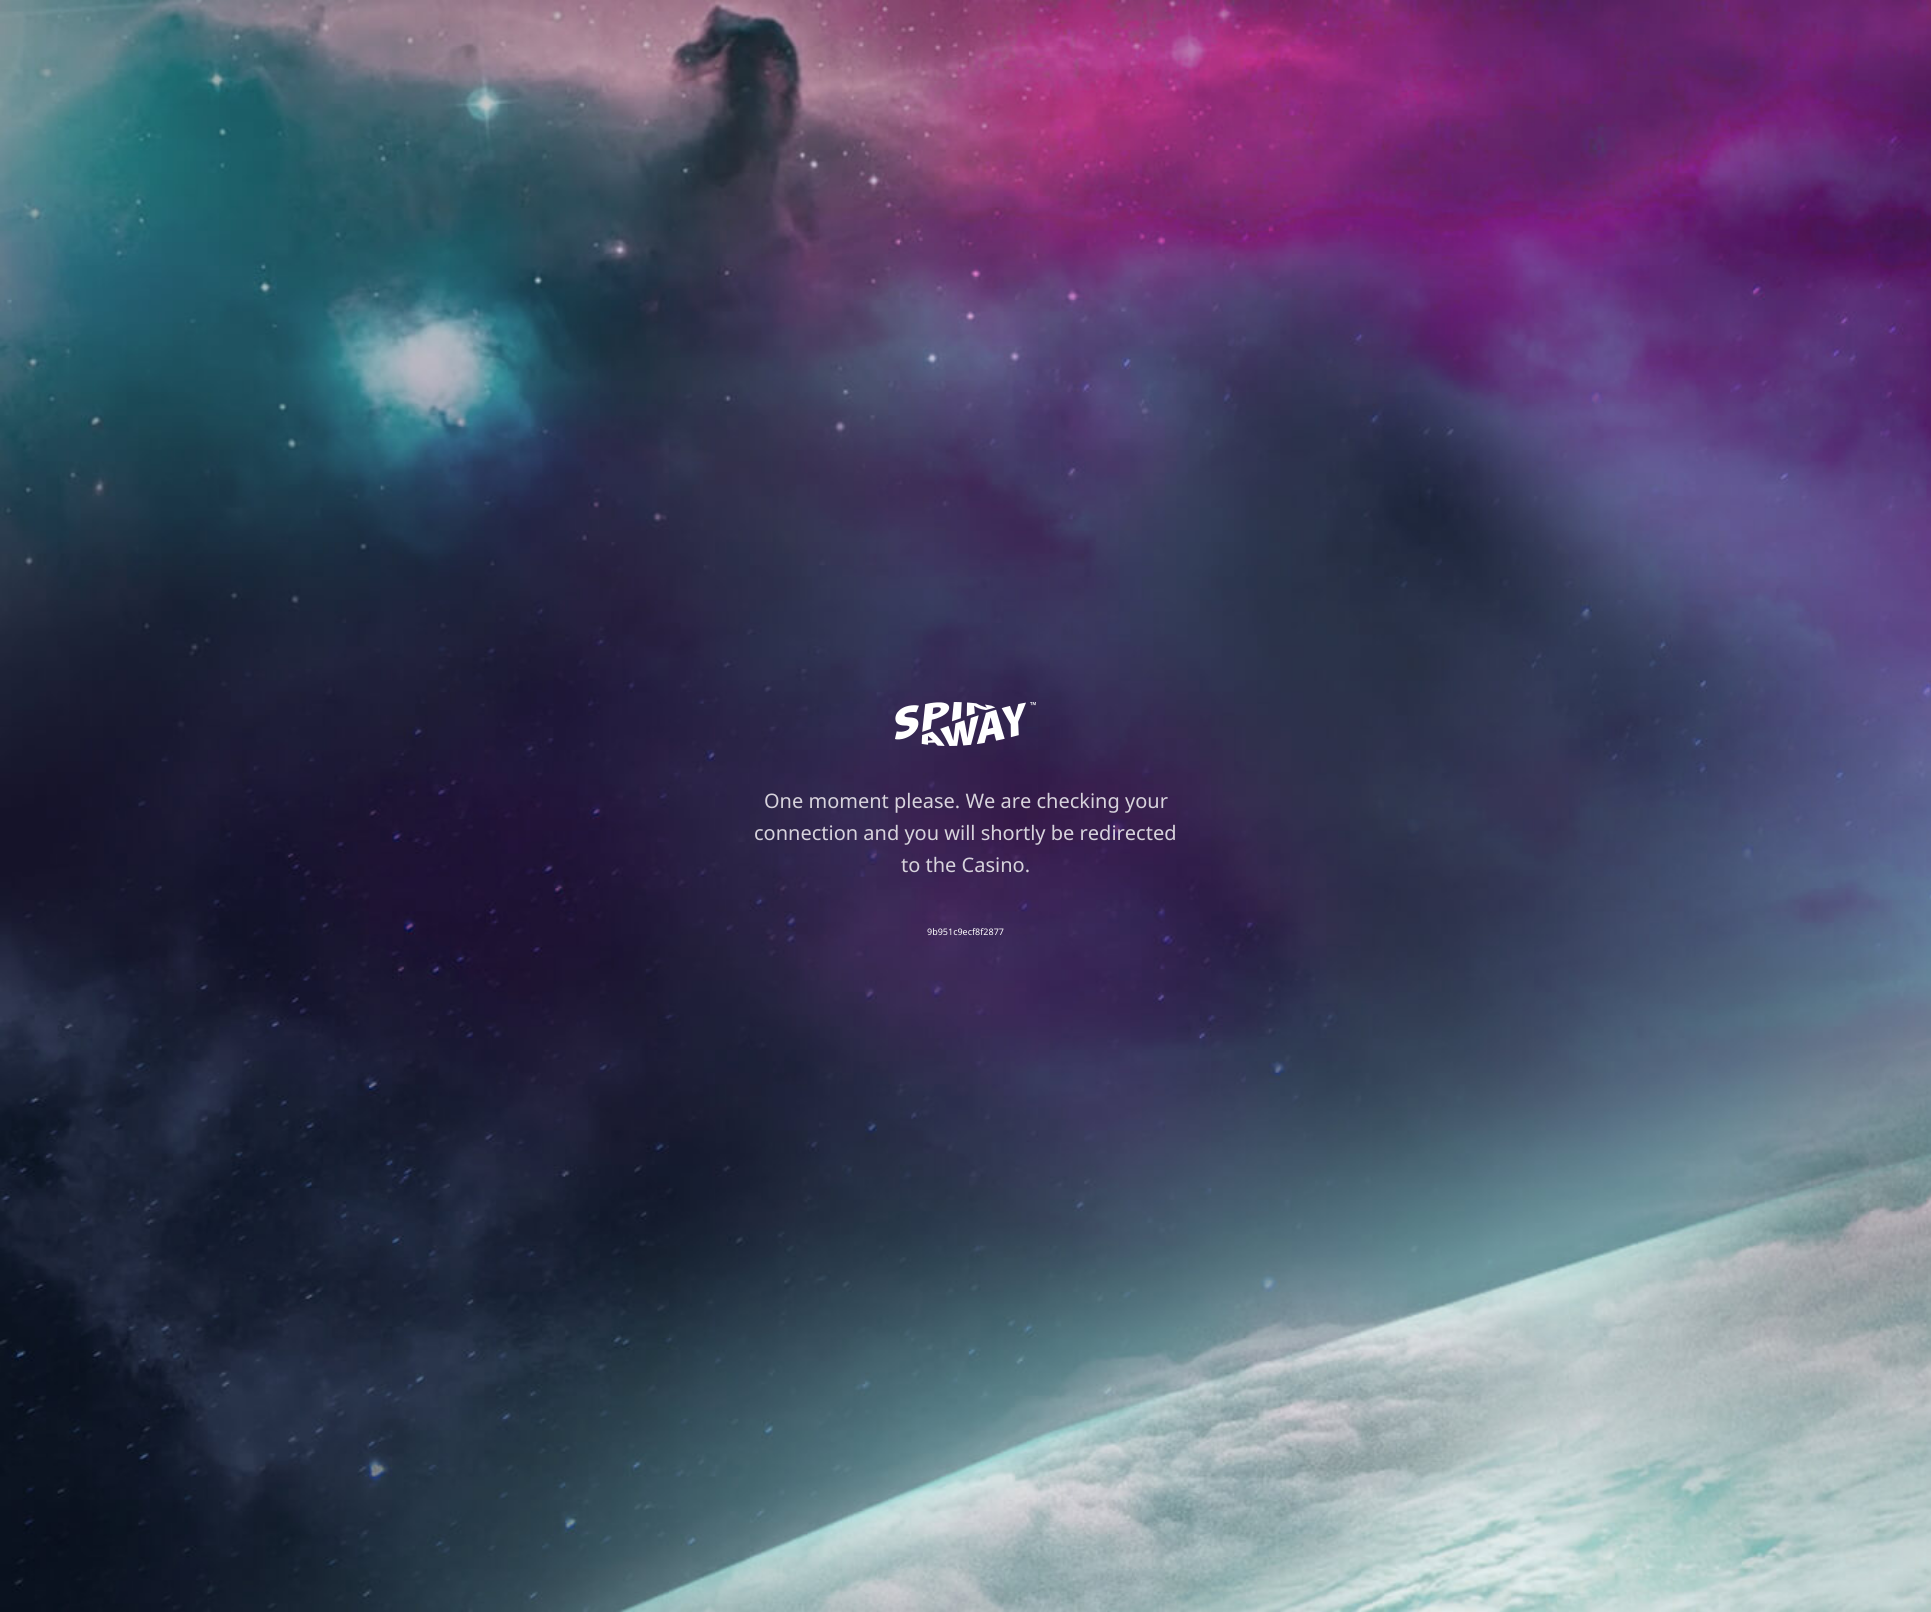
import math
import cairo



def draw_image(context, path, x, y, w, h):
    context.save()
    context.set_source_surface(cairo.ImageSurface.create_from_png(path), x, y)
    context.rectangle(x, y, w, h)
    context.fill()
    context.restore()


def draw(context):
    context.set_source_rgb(1, 1, 1)
    context.paint()
    draw_image(context, "images/1.png", 0, 0, 1931, 1612)
    draw_image(context, "images/2.png", 895, 702, 141, 44)
    context.select_font_face("Noto Sans")
    context.set_font_size(20)
    context.set_source_rgb(215 / 255, 211 / 255, 220 / 255)
    context.move_to(764, 808)
    context.show_text("One moment please. We are checking your")
    context.move_to(754, 840)
    context.show_text("connection and you will shortly be redirected")
    context.move_to(901, 872)
    context.show_text("to the Casino.")
    context.set_font_size(9)
    context.set_source_rgb(1, 1, 1)
    context.move_to(927, 935)
    context.show_text("9b951c9ecf8f2877")


surface = cairo.ImageSurface(cairo.Format.RGB24, 1931, 1612)
context = cairo.Context(surface)
options = cairo.FontOptions()
options.set_hint_metrics(cairo.HintMetrics.OFF)
options.set_hint_style(cairo.HintStyle.NONE)
context.set_font_options(options)
context.set_miter_limit(4)
draw(context)
surface.write_to_png("out.png")
